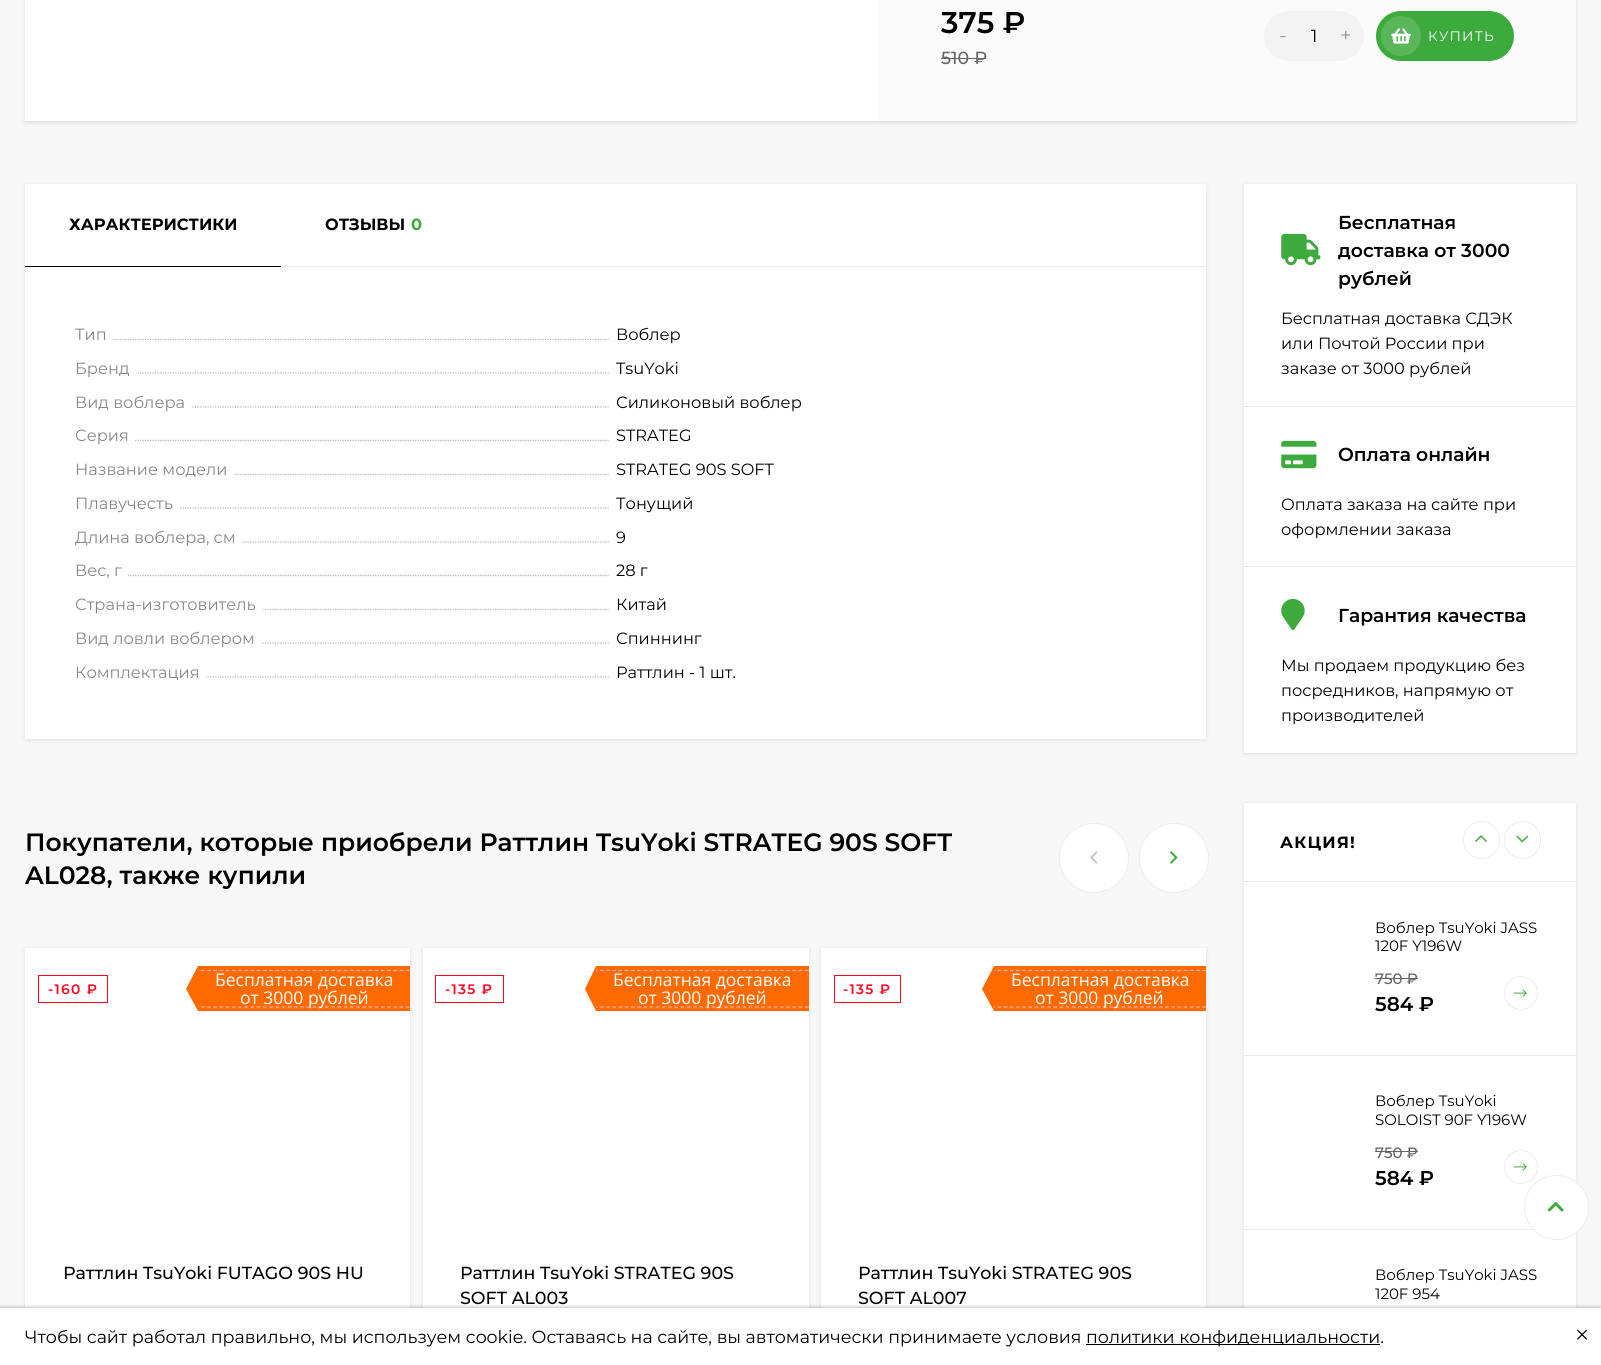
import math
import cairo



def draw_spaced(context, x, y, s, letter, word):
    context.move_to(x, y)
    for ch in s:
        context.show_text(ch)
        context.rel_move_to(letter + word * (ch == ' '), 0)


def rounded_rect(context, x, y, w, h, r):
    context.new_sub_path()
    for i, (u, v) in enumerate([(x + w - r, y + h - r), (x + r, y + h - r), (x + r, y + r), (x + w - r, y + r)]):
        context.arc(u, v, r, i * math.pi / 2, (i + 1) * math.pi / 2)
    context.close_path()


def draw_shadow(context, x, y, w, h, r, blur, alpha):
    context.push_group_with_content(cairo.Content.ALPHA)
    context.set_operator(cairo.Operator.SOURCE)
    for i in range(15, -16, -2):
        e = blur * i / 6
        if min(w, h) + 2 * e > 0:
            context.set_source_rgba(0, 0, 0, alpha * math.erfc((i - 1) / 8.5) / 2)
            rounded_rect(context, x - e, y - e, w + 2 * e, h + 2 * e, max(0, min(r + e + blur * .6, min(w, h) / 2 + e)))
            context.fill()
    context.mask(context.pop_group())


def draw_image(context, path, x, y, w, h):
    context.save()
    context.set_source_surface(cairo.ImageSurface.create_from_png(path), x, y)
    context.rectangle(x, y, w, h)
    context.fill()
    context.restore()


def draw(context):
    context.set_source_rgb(247 / 255, 247 / 255, 247 / 255)
    context.paint()
    context.set_source_rgb(0, 0, 0)
    draw_shadow(context, 25, -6, 1551, 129, 0, 2, 0.1)
    context.set_source_rgb(1, 1, 1)
    context.rectangle(25, 0, 854, 121)
    context.fill()
    context.set_source_rgb(251 / 255, 251 / 255, 251 / 255)
    context.rectangle(879, 0, 697, 121)
    context.fill()
    context.set_source_rgb(101 / 255, 101 / 255, 101 / 255)
    context.rectangle(941, 58, 45, 1)
    context.fill()
    context.set_source_rgb(243 / 255, 243 / 255, 243 / 255)
    rounded_rect(context, 1264, 11, 100, 50, 25)
    context.fill()
    context.set_source_rgb(60 / 255, 170 / 255, 60 / 255)
    rounded_rect(context, 1376, 11, 138, 50, 25)
    context.fill()
    context.set_source_rgb(89 / 255, 183 / 255, 89 / 255)
    context.arc(1401, 36, 20, 0, 2 * math.pi)
    context.fill()
    draw_image(context, "images/1.png", 1391, 28, 20, 16)
    context.set_source_rgb(0, 0, 0)
    draw_shadow(context, 25, 185, 1181, 555, 0, 2, 0.1)
    context.set_source_rgb(1, 1, 1)
    context.rectangle(25, 184, 1181, 555)
    context.fill()
    context.set_source_rgb(235 / 255, 235 / 255, 235 / 255)
    context.rectangle(281, 266, 925, 1)
    context.fill()
    context.set_source_rgb(0, 0, 0)
    context.rectangle(25, 266, 256, 1)
    context.fill()
    context.new_path()
    context.move_to(75, 339.5)
    context.line_to(610, 339.5)
    context.set_source_rgb(181 / 255, 181 / 255, 181 / 255)
    context.set_line_width(1.2)
    context.set_dash([1.25, 1.25])
    context.stroke()
    context.set_source_rgb(1, 1, 1)
    context.rectangle(75, 338, 38, 3)
    context.fill()
    context.new_path()
    context.move_to(75, 373)
    context.line_to(610, 373)
    context.set_source_rgb(181 / 255, 181 / 255, 181 / 255)
    context.stroke()
    context.set_source_rgb(1, 1, 1)
    context.rectangle(75, 372, 61, 2)
    context.fill()
    context.new_path()
    context.move_to(75, 407)
    context.line_to(610, 407)
    context.set_source_rgb(181 / 255, 181 / 255, 181 / 255)
    context.stroke()
    context.set_source_rgb(1, 1, 1)
    context.rectangle(75, 406, 116, 2)
    context.fill()
    context.new_path()
    context.move_to(75, 440.5)
    context.line_to(610, 440.5)
    context.set_source_rgb(181 / 255, 181 / 255, 181 / 255)
    context.stroke()
    context.set_source_rgb(1, 1, 1)
    context.rectangle(75, 439, 59, 3)
    context.fill()
    context.new_path()
    context.move_to(75, 474.5)
    context.line_to(610, 474.5)
    context.set_source_rgb(181 / 255, 181 / 255, 181 / 255)
    context.stroke()
    context.set_source_rgb(1, 1, 1)
    context.rectangle(75, 473, 159, 3)
    context.fill()
    context.new_path()
    context.move_to(75, 508)
    context.line_to(610, 508)
    context.set_source_rgb(181 / 255, 181 / 255, 181 / 255)
    context.stroke()
    context.set_source_rgb(1, 1, 1)
    context.rectangle(75, 507, 104, 2)
    context.fill()
    context.new_path()
    context.move_to(75, 542)
    context.line_to(610, 542)
    context.set_source_rgb(181 / 255, 181 / 255, 181 / 255)
    context.stroke()
    context.set_source_rgb(1, 1, 1)
    context.rectangle(75, 541, 166, 2)
    context.fill()
    context.new_path()
    context.move_to(75, 575.5)
    context.line_to(610, 575.5)
    context.set_source_rgb(181 / 255, 181 / 255, 181 / 255)
    context.stroke()
    context.set_source_rgb(1, 1, 1)
    context.rectangle(75, 574, 53, 3)
    context.fill()
    context.new_path()
    context.move_to(75, 609.5)
    context.line_to(610, 609.5)
    context.set_source_rgb(181 / 255, 181 / 255, 181 / 255)
    context.stroke()
    context.set_source_rgb(1, 1, 1)
    context.rectangle(75, 608, 188, 3)
    context.fill()
    context.new_path()
    context.move_to(75, 643)
    context.line_to(610, 643)
    context.set_source_rgb(181 / 255, 181 / 255, 181 / 255)
    context.stroke()
    context.set_source_rgb(1, 1, 1)
    context.rectangle(75, 642, 186, 2)
    context.fill()
    context.new_path()
    context.move_to(75, 677)
    context.line_to(610, 677)
    context.set_source_rgb(181 / 255, 181 / 255, 181 / 255)
    context.stroke()
    context.set_source_rgb(1, 1, 1)
    context.rectangle(75, 676, 131, 2)
    context.fill()
    context.arc(1094, 858, 34.5, 0, 2 * math.pi)
    context.fill_preserve()
    context.set_source_rgb(235 / 255, 235 / 255, 235 / 255)
    context.set_line_width(1)
    context.set_dash([])
    context.stroke()
    draw_image(context, "images/2.png", 1090, 851, 8, 13)
    context.set_source_rgb(1, 1, 1)
    context.arc(1174, 858, 34.5, 0, 2 * math.pi)
    context.fill_preserve()
    context.set_source_rgb(235 / 255, 235 / 255, 235 / 255)
    context.stroke()
    draw_image(context, "images/3.png", 1170, 851, 8, 13)
    context.set_source_rgb(0, 0, 0)
    draw_shadow(context, 25, 949, 385, 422, 0, 2, 0.1)
    context.set_source_rgb(1, 1, 1)
    context.rectangle(25, 948, 385, 360)
    context.fill()
    context.rectangle(38.5, 975.5, 69, 27)
    context.set_source_rgb(1, 6 / 255, 35 / 255)
    context.stroke()
    context.set_source_rgb(1, 106 / 255, 0)
    context.rectangle(198, 966, 212, 45)
    context.fill()
    context.new_path()
    context.move_to(198, 966)
    context.line_to(198, 1011)
    context.line_to(186, 989)
    context.close_path()
    context.fill()
    context.save()
    context.rectangle(198, 966, 212, 45)
    context.clip()
    context.new_path()
    context.move_to(176, 970.5)
    context.line_to(410, 970.5)
    context.set_source_rgb(240 / 255, 175 / 255, 175 / 255)
    context.set_line_width(1.2)
    context.set_dash([3.75, 2.46])
    context.stroke()
    context.new_path()
    context.move_to(176, 1007)
    context.line_to(410, 1007)
    context.stroke()
    context.restore()
    context.set_source_rgb(0, 0, 0)
    draw_shadow(context, 423, 949, 386, 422, 0, 2, 0.1)
    context.set_source_rgb(1, 1, 1)
    context.rectangle(423, 948, 386, 360)
    context.fill()
    context.rectangle(435.5, 975.5, 68, 27)
    context.set_source_rgb(1, 6 / 255, 35 / 255)
    context.stroke()
    context.set_source_rgb(1, 106 / 255, 0)
    context.rectangle(596, 966, 213, 45)
    context.fill()
    context.new_path()
    context.move_to(596, 966)
    context.line_to(596, 1011)
    context.line_to(585, 989)
    context.close_path()
    context.fill()
    context.save()
    context.rectangle(596, 966, 213, 45)
    context.clip()
    context.new_path()
    context.move_to(575, 970.5)
    context.line_to(809, 970.5)
    context.set_source_rgb(240 / 255, 175 / 255, 175 / 255)
    context.set_line_width(1.2)
    context.set_dash([3.75, 2.46])
    context.stroke()
    context.new_path()
    context.move_to(575, 1007)
    context.line_to(809, 1007)
    context.stroke()
    context.restore()
    context.set_source_rgb(0, 0, 0)
    draw_shadow(context, 821, 949, 385, 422, 0, 2, 0.1)
    context.set_source_rgb(1, 1, 1)
    context.rectangle(821, 948, 385, 360)
    context.fill()
    context.rectangle(834.5, 975.5, 66, 27)
    context.set_source_rgb(1, 6 / 255, 35 / 255)
    context.stroke()
    context.set_source_rgb(1, 106 / 255, 0)
    context.rectangle(994, 966, 212, 45)
    context.fill()
    context.new_path()
    context.move_to(994, 966)
    context.line_to(994, 1011)
    context.line_to(982, 989)
    context.close_path()
    context.fill()
    context.save()
    context.rectangle(994, 966, 212, 45)
    context.clip()
    context.new_path()
    context.move_to(972.5, 970.5)
    context.line_to(1206, 970.5)
    context.set_source_rgb(240 / 255, 175 / 255, 175 / 255)
    context.set_line_width(1.2)
    context.set_dash([3.75, 2.46])
    context.stroke()
    context.new_path()
    context.move_to(972.5, 1007)
    context.line_to(1206, 1007)
    context.stroke()
    context.restore()
    context.set_source_rgb(0, 0, 0)
    draw_shadow(context, 1244, 185, 332, 569, 0, 2, 0.1)
    context.set_source_rgb(1, 1, 1)
    context.rectangle(1244, 184, 332, 569)
    context.fill()
    context.set_source_rgb(235 / 255, 235 / 255, 235 / 255)
    context.rectangle(1244, 406, 332, 1)
    context.fill()
    draw_image(context, "images/4.png", 1281, 233, 40, 33)
    context.rectangle(1244, 566, 332, 1)
    context.fill()
    draw_image(context, "images/5.png", 1281, 440, 36, 29)
    draw_image(context, "images/6.png", 1281, 598, 24, 33)
    context.set_source_rgb(0, 0, 0)
    draw_shadow(context, 1244, 804, 332, 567, 0, 2, 0.1)
    context.set_source_rgb(1, 1, 1)
    context.rectangle(1244, 803, 332, 505)
    context.fill()
    context.set_source_rgb(235 / 255, 235 / 255, 235 / 255)
    context.rectangle(1243, 881, 333, 1)
    context.fill()
    rounded_rect(context, 1463.5, 821.5, 36, 37, 18)
    context.stroke()
    draw_image(context, "images/7.png", 1475, 835, 12, 7)
    rounded_rect(context, 1504.5, 821.5, 36, 37, 18)
    context.stroke()
    draw_image(context, "images/8.png", 1516, 835, 13, 8)
    context.rectangle(1244, 1055, 332, 1)
    context.fill()
    context.set_source_rgb(101 / 255, 101 / 255, 101 / 255)
    context.rectangle(1375, 978, 43, 1)
    context.fill()
    context.arc(1521, 993, 16.5, 0, 2 * math.pi)
    context.set_source_rgb(235 / 255, 235 / 255, 235 / 255)
    context.stroke()
    draw_image(context, "images/9.png", 1513, 989, 14, 8)
    context.rectangle(1244, 1229, 289, 1)
    context.fill()
    context.set_source_rgb(101 / 255, 101 / 255, 101 / 255)
    context.rectangle(1375, 1151, 43, 1)
    context.fill()
    context.arc(1521, 1167, 16.5, 0, 2 * math.pi)
    context.set_source_rgb(235 / 255, 235 / 255, 235 / 255)
    context.stroke()
    draw_image(context, "images/10.png", 1513, 1163, 14, 8)
    context.set_source_rgb(1, 1, 1)
    context.arc(1556.5, 1207.5, 32, 0, 2 * math.pi)
    context.fill_preserve()
    context.set_source_rgb(235 / 255, 235 / 255, 235 / 255)
    context.stroke()
    draw_image(context, "images/11.png", 1547, 1201, 17, 11)
    context.set_source_rgb(0, 0, 0)
    draw_shadow(context, 0, 1306, 1601, 58, 0, 1, 0.15)
    context.set_source_rgb(1, 1, 1)
    context.rectangle(0, 1308, 1601, 57)
    context.fill()
    context.set_source_rgb(0, 0, 0)
    context.rectangle(1086, 1344, 294, 1)
    context.fill()
    context.select_font_face("Montserrat SemiBold")
    context.set_font_size(30)
    context.move_to(941, 33)
    context.show_text("375 ₽")
    context.select_font_face("Montserrat Medium")
    context.set_font_size(17.5)
    context.set_source_rgb(101 / 255, 101 / 255, 101 / 255)
    context.move_to(941, 64)
    context.show_text("510 ₽")
    context.select_font_face("Montserrat")
    context.set_font_size(20)
    context.set_source_rgb(149 / 255, 149 / 255, 149 / 255)
    context.move_to(1279, 42)
    context.show_text("-")
    context.set_font_size(17.5)
    context.set_source_rgb(0, 0, 0)
    context.move_to(1311, 42)
    context.show_text("1")
    context.set_font_size(20)
    context.set_source_rgb(149 / 255, 149 / 255, 149 / 255)
    context.move_to(1340, 42)
    context.show_text("+")
    context.set_font_size(13.75)
    context.set_source_rgb(1, 1, 1)
    draw_spaced(context, 1428, 41, "КУПИТЬ", 1.25, 0)
    context.select_font_face("Montserrat", cairo.FontSlant.NORMAL, cairo.FontWeight.BOLD)
    context.set_font_size(16.25)
    context.set_source_rgb(0, 0, 0)
    context.move_to(69, 230)
    context.show_text("ХАРАКТЕРИСТИКИ")
    context.move_to(325, 230)
    context.show_text("ОТЗЫВЫ")
    context.set_source_rgb(60 / 255, 170 / 255, 60 / 255)
    context.move_to(411, 230)
    context.show_text("0")
    context.select_font_face("Montserrat")
    context.set_source_rgb(136 / 255, 136 / 255, 136 / 255)
    context.move_to(75, 340)
    context.show_text("Тип")
    context.set_source_rgb(0, 0, 0)
    context.move_to(616, 340)
    context.show_text("Воблер")
    context.set_source_rgb(136 / 255, 136 / 255, 136 / 255)
    context.move_to(75, 374)
    context.show_text("Бренд")
    context.set_source_rgb(0, 0, 0)
    context.move_to(616, 374)
    context.show_text("TsuYoki")
    context.set_source_rgb(136 / 255, 136 / 255, 136 / 255)
    context.move_to(75, 408)
    context.show_text("Вид воблера")
    context.set_source_rgb(0, 0, 0)
    context.move_to(616, 408)
    context.show_text("Силиконовый воблер")
    context.set_source_rgb(136 / 255, 136 / 255, 136 / 255)
    context.move_to(75, 441)
    context.show_text("Серия")
    context.set_source_rgb(0, 0, 0)
    context.move_to(616, 441)
    context.show_text("STRATEG")
    context.set_source_rgb(136 / 255, 136 / 255, 136 / 255)
    context.move_to(75, 475)
    context.show_text("Название модели")
    context.set_source_rgb(0, 0, 0)
    context.move_to(616, 475)
    context.show_text("STRATEG 90S SOFT")
    context.set_source_rgb(136 / 255, 136 / 255, 136 / 255)
    context.move_to(75, 509)
    context.show_text("Плавучесть")
    context.set_source_rgb(0, 0, 0)
    context.move_to(616, 509)
    context.show_text("Тонущий")
    context.set_source_rgb(136 / 255, 136 / 255, 136 / 255)
    context.move_to(75, 543)
    context.show_text("Длина воблера, см")
    context.set_source_rgb(0, 0, 0)
    context.move_to(616, 543)
    context.show_text("9")
    context.set_source_rgb(136 / 255, 136 / 255, 136 / 255)
    context.move_to(75, 576)
    context.show_text("Вес, г")
    context.set_source_rgb(0, 0, 0)
    context.move_to(616, 576)
    context.show_text("28 г")
    context.set_source_rgb(136 / 255, 136 / 255, 136 / 255)
    context.move_to(75, 610)
    context.show_text("Страна-изготовитель")
    context.set_source_rgb(0, 0, 0)
    context.move_to(616, 610)
    context.show_text("Китай")
    context.set_source_rgb(136 / 255, 136 / 255, 136 / 255)
    context.move_to(75, 644)
    context.show_text("Вид ловли воблером")
    context.set_source_rgb(0, 0, 0)
    context.move_to(616, 644)
    context.show_text("Спиннинг")
    context.set_source_rgb(136 / 255, 136 / 255, 136 / 255)
    context.move_to(75, 678)
    context.show_text("Комплектация")
    context.set_source_rgb(0, 0, 0)
    context.move_to(616, 678)
    context.show_text("Раттлин - 1 шт.")
    context.select_font_face("Montserrat SemiBold")
    context.set_font_size(25)
    context.move_to(25, 851)
    context.show_text("Покупатели, которые приобрели Раттлин TsuYoki STRATEG 90S SOFT")
    context.move_to(25, 884)
    context.show_text("AL028, также купили")
    context.set_font_size(13.75)
    context.set_source_rgb(1, 6 / 255, 35 / 255)
    draw_spaced(context, 48, 994, "-160 ₽", 1.25, 0)
    context.select_font_face("Open Sans")
    context.set_font_size(17.5)
    context.set_source_rgb(1, 1, 1)
    context.move_to(215, 986)
    context.show_text("Бесплатная доставка")
    context.move_to(240, 1004)
    context.show_text("от 3000 рублей")
    context.select_font_face("Montserrat Medium")
    context.set_source_rgb(0, 0, 0)
    context.move_to(63, 1279)
    context.show_text("Раттлин TsuYoki FUTAGO 90S HU")
    context.select_font_face("Montserrat SemiBold")
    context.set_font_size(13.75)
    context.set_source_rgb(1, 6 / 255, 35 / 255)
    draw_spaced(context, 445, 994, "-135 ₽", 1.25, 0)
    context.select_font_face("Open Sans")
    context.set_font_size(17.5)
    context.set_source_rgb(1, 1, 1)
    context.move_to(613, 986)
    context.show_text("Бесплатная доставка")
    context.move_to(638, 1004)
    context.show_text("от 3000 рублей")
    context.select_font_face("Montserrat Medium")
    context.set_source_rgb(0, 0, 0)
    context.move_to(460, 1279)
    context.show_text("Раттлин TsuYoki STRATEG 90S")
    context.move_to(460, 1304)
    context.show_text("SOFT AL003")
    context.select_font_face("Montserrat SemiBold")
    context.set_font_size(13.75)
    context.set_source_rgb(1, 6 / 255, 35 / 255)
    draw_spaced(context, 843, 994, "-135 ₽", 1.25, 0)
    context.select_font_face("Open Sans")
    context.set_font_size(17.5)
    context.set_source_rgb(1, 1, 1)
    context.move_to(1011, 986)
    context.show_text("Бесплатная доставка")
    context.move_to(1035, 1004)
    context.show_text("от 3000 рублей")
    context.select_font_face("Montserrat Medium")
    context.set_source_rgb(0, 0, 0)
    context.move_to(858, 1279)
    context.show_text("Раттлин TsuYoki STRATEG 90S")
    context.move_to(858, 1304)
    context.show_text("SOFT AL007")
    context.select_font_face("Montserrat SemiBold")
    context.set_font_size(18.75)
    context.move_to(1338, 229)
    context.show_text("Бесплатная")
    context.move_to(1338, 257)
    context.show_text("доставка от 3000")
    context.move_to(1338, 285)
    context.show_text("рублей")
    context.select_font_face("Montserrat")
    context.set_font_size(16.25)
    context.move_to(1281, 324)
    context.show_text("Бесплатная доставка СДЭК")
    context.move_to(1281, 349)
    context.show_text("или Почтой России при")
    context.move_to(1281, 374)
    context.show_text("заказе от 3000 рублей")
    context.select_font_face("Montserrat SemiBold")
    context.set_font_size(18.75)
    context.move_to(1338, 461)
    context.show_text("Оплата онлайн")
    context.select_font_face("Montserrat")
    context.set_font_size(16.25)
    context.move_to(1281, 510)
    context.show_text("Оплата заказа на сайте при")
    context.move_to(1281, 535)
    context.show_text("оформлении заказа")
    context.select_font_face("Montserrat SemiBold")
    context.set_font_size(18.75)
    context.move_to(1338, 622)
    context.show_text("Гарантия качества")
    context.select_font_face("Montserrat")
    context.set_font_size(16.25)
    context.move_to(1281, 671)
    context.show_text("Мы продаем продукцию без")
    context.move_to(1281, 696)
    context.show_text("посредников, напрямую от")
    context.move_to(1281, 721)
    context.show_text("производителей")
    context.select_font_face("Montserrat", cairo.FontSlant.NORMAL, cairo.FontWeight.BOLD)
    draw_spaced(context, 1280, 848, "АКЦИЯ!", 1.25, 0)
    context.select_font_face("Montserrat")
    context.set_font_size(15)
    context.move_to(1375, 933)
    context.show_text("Воблер TsuYoki JASS")
    context.move_to(1375, 951)
    context.show_text("120F Y196W")
    context.select_font_face("Montserrat Medium")
    context.set_source_rgb(101 / 255, 101 / 255, 101 / 255)
    context.move_to(1375, 984)
    context.show_text("750 ₽")
    context.select_font_face("Montserrat SemiBold")
    context.set_font_size(20)
    context.set_source_rgb(0, 0, 0)
    context.move_to(1375, 1011)
    context.show_text("584 ₽")
    context.select_font_face("Montserrat")
    context.set_font_size(15)
    context.move_to(1375, 1106)
    context.show_text("Воблер TsuYoki")
    context.move_to(1375, 1125)
    context.show_text("SOLOIST 90F Y196W")
    context.select_font_face("Montserrat Medium")
    context.set_source_rgb(101 / 255, 101 / 255, 101 / 255)
    context.move_to(1375, 1158)
    context.show_text("750 ₽")
    context.select_font_face("Montserrat SemiBold")
    context.set_font_size(20)
    context.set_source_rgb(0, 0, 0)
    context.move_to(1375, 1185)
    context.show_text("584 ₽")
    context.select_font_face("Montserrat")
    context.set_font_size(15)
    context.move_to(1375, 1280)
    context.show_text("Воблер TsuYoki JASS")
    context.move_to(1375, 1299)
    context.show_text("120F 954")
    context.set_font_size(17.5)
    context.move_to(25, 1343)
    context.show_text("Чтобы сайт работал правильно, мы используем cookie. Оставаясь на сайте, вы автоматически принимаете условия")
    context.move_to(1086, 1343)
    context.show_text("политики конфиденциальности.")
    context.select_font_face("Liberation Serif")
    context.set_font_size(25)
    context.move_to(1575, 1343)
    context.show_text("×")


surface = cairo.ImageSurface(cairo.Format.RGB24, 1601, 1365)
context = cairo.Context(surface)
options = cairo.FontOptions()
options.set_hint_metrics(cairo.HintMetrics.OFF)
options.set_hint_style(cairo.HintStyle.NONE)
context.set_font_options(options)
context.set_miter_limit(4)
draw(context)
surface.write_to_png("out.png")
